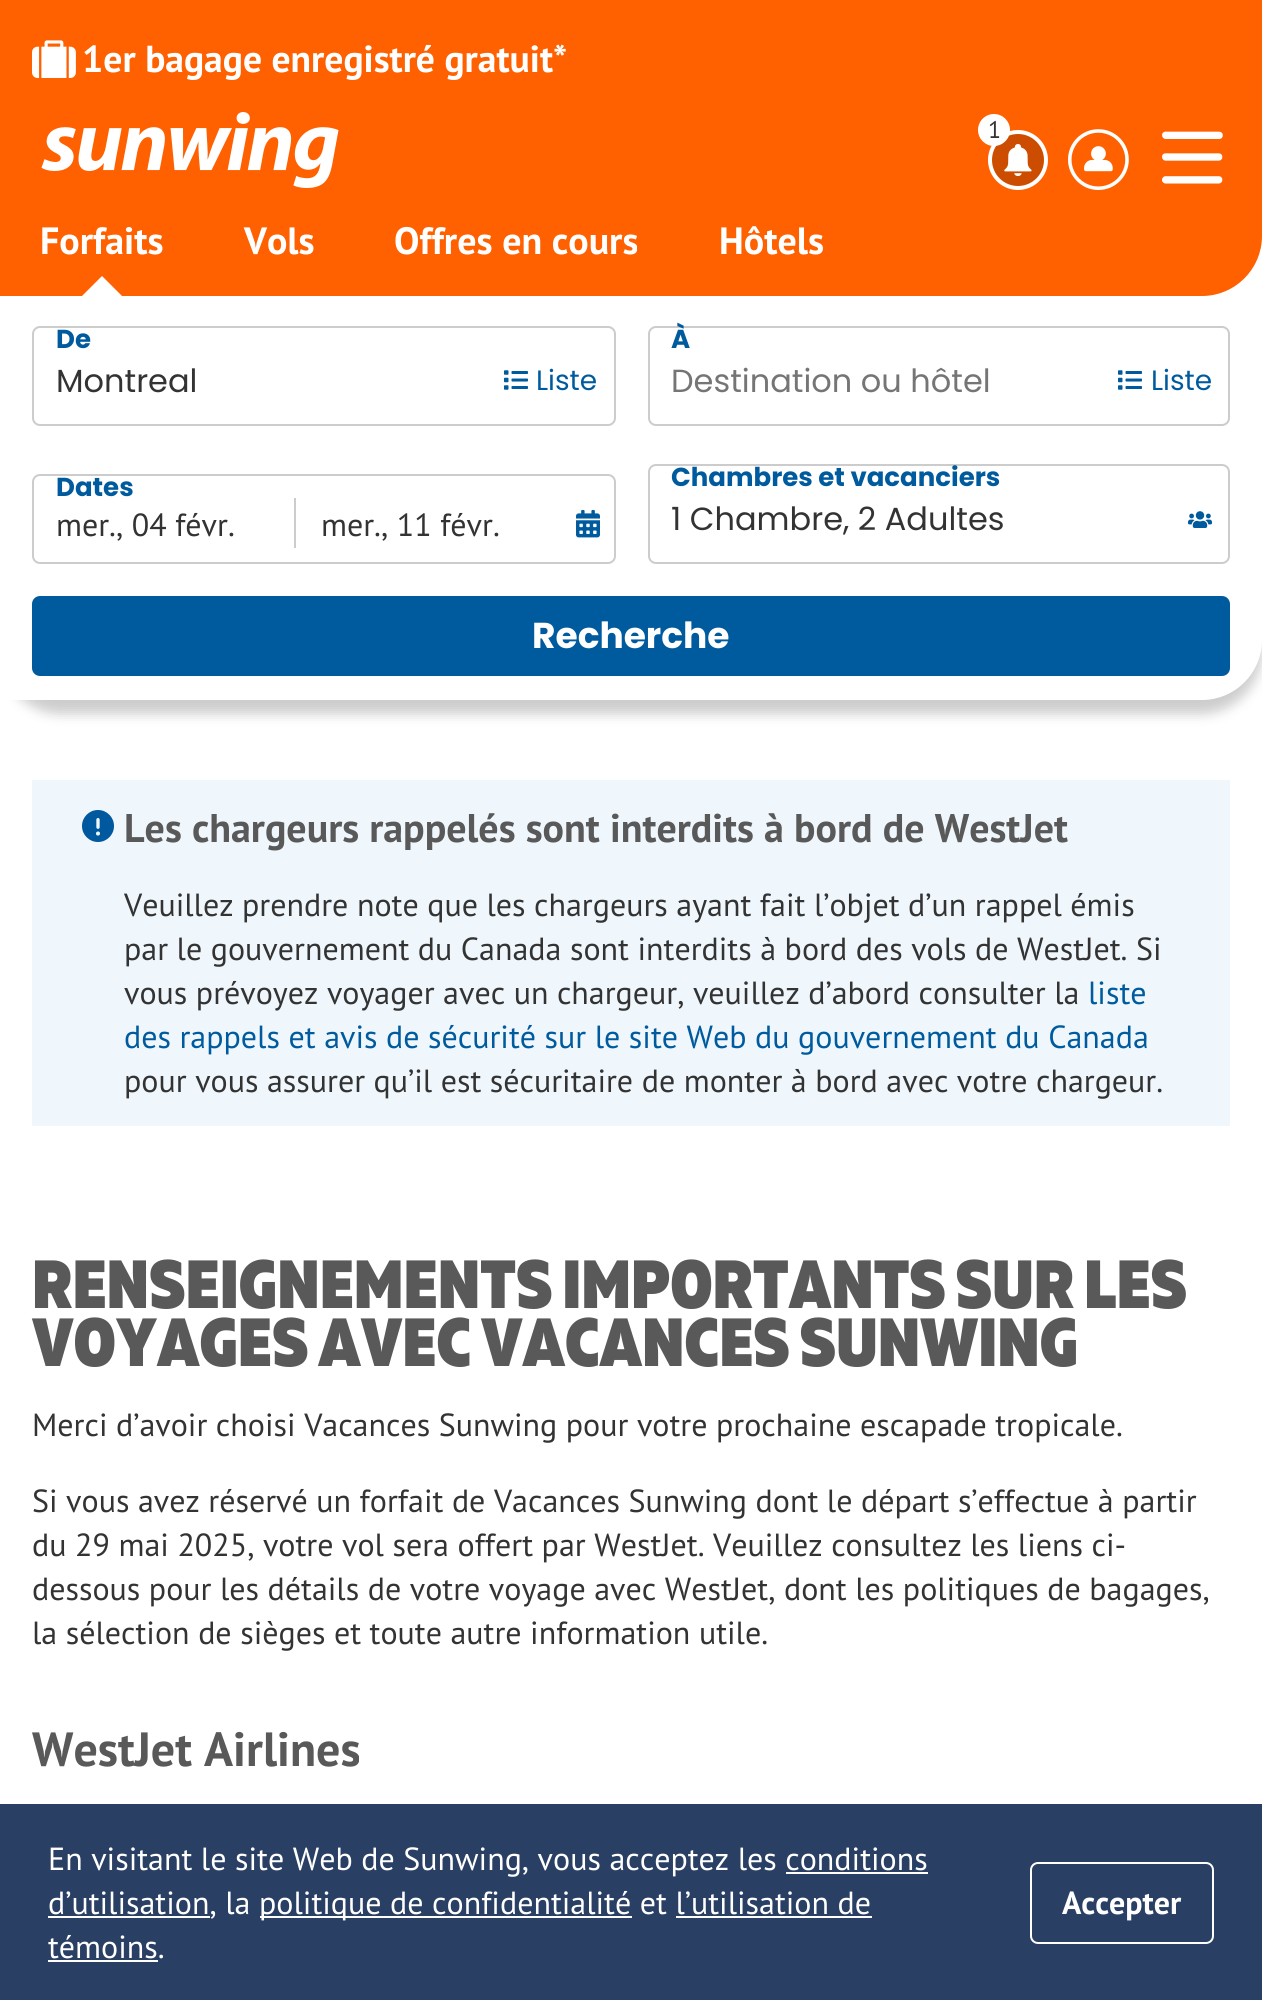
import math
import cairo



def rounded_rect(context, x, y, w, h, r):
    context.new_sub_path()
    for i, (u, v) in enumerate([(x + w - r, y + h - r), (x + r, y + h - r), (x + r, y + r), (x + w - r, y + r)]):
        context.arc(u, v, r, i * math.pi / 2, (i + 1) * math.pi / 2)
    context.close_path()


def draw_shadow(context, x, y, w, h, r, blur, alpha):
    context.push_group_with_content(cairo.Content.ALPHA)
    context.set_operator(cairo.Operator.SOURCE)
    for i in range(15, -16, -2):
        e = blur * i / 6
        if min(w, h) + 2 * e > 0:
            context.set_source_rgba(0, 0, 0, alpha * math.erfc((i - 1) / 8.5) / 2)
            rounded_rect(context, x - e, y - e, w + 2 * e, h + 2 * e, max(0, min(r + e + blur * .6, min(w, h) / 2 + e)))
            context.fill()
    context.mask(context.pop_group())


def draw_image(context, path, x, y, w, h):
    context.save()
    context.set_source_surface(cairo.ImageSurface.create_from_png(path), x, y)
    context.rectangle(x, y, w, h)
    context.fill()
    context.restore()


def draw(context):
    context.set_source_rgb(1, 1, 1)
    context.paint()
    context.set_source_rgb(1, 96 / 255, 0)
    context.new_path()
    context.move_to(0, 0)
    context.line_to(1262, 0)
    context.line_to(1262, 236)
    context.curve_to(1262, 269, 1235, 296, 1202, 296)
    context.line_to(0, 296)
    context.close_path()
    context.fill()
    draw_image(context, "images/1.png", 32, 40, 44, 38)
    draw_image(context, "images/2.png", 41, 112, 298, 76)
    context.set_source_rgb(204 / 255, 77 / 255, 0)
    context.arc(1018, 160, 28, 0, 2 * math.pi)
    context.fill_preserve()
    context.set_source_rgb(1, 1, 1)
    context.set_line_width(4)
    context.stroke()
    draw_image(context, "images/3.png", 1004, 144, 28, 32)
    context.arc(994, 130, 16, 0, 2 * math.pi)
    context.fill()
    draw_image(context, "images/4.png", 1068, 129, 61, 61)
    draw_image(context, "images/5.png", 1162, 131, 61, 53)
    context.new_path()
    context.move_to(122, 296)
    context.line_to(82, 296)
    context.line_to(102, 276)
    context.close_path()
    context.fill()
    context.set_source_rgb(51 / 255, 51 / 255, 51 / 255)
    draw_shadow(context, 0, 310, 1262, 404, 60, 6, 0.25)
    context.set_source_rgb(1, 1, 1)
    context.new_path()
    context.move_to(0, 296)
    context.line_to(1262, 296)
    context.line_to(1262, 640)
    context.curve_to(1262, 673, 1235, 700, 1202, 700)
    context.line_to(0, 700)
    context.close_path()
    context.fill()
    draw_image(context, "images/6.png", 504, 370, 24, 20)
    rounded_rect(context, 33, 327, 582, 98, 7)
    context.set_source_rgb(204 / 255, 204 / 255, 204 / 255)
    context.set_line_width(2)
    context.stroke()
    draw_image(context, "images/6.png", 1118, 370, 24, 20)
    rounded_rect(context, 649, 327, 580, 98, 7)
    context.stroke()
    context.rectangle(294, 498, 2, 50)
    context.fill()
    draw_image(context, "images/7.png", 576, 510, 24, 28)
    rounded_rect(context, 33, 475, 582, 88, 7)
    context.stroke()
    draw_image(context, "images/8.png", 1188, 511, 24, 17)
    rounded_rect(context, 649, 465, 580, 98, 7)
    context.stroke()
    context.set_source_rgb(0, 91 / 255, 158 / 255)
    rounded_rect(context, 33, 597, 1196, 78, 7)
    context.fill_preserve()
    context.stroke()
    context.set_source_rgb(239 / 255, 247 / 255, 252 / 255)
    context.rectangle(32, 780, 1198, 346)
    context.fill()
    draw_image(context, "images/9.png", 82, 810, 32, 32)
    context.set_source_rgb(42 / 255, 63 / 255, 100 / 255)
    context.rectangle(0, 1804, 1262, 196)
    context.fill()
    context.set_source_rgb(1, 1, 1)
    context.rectangle(786, 1872, 142, 2)
    context.fill()
    context.rectangle(48, 1916, 162, 2)
    context.fill()
    context.rectangle(260, 1916, 372, 2)
    context.fill()
    context.rectangle(676, 1916, 196, 2)
    context.fill()
    context.rectangle(48, 1960, 110, 2)
    context.fill()
    rounded_rect(context, 1031, 1863, 182, 80, 7)
    context.stroke()
    context.select_font_face("PT Sans", cairo.FontSlant.NORMAL, cairo.FontWeight.BOLD)
    context.set_font_size(37.6)
    context.move_to(82, 72)
    context.show_text("1er bagage enregistré gratuit*")
    context.select_font_face("PT Sans")
    context.set_font_size(24)
    context.set_source_rgb(51 / 255, 51 / 255, 51 / 255)
    context.move_to(988, 138)
    context.show_text("1")
    context.select_font_face("PT Sans", cairo.FontSlant.NORMAL, cairo.FontWeight.BOLD)
    context.set_font_size(38)
    context.set_source_rgb(1, 1, 1)
    context.move_to(40, 254)
    context.show_text("Forfaits")
    context.move_to(244, 254)
    context.show_text("Vols")
    context.move_to(394, 254)
    context.show_text("Offres en cours")
    context.move_to(719, 254)
    context.show_text("Hôtels")
    context.select_font_face("Poppins", cairo.FontSlant.NORMAL, cairo.FontWeight.BOLD)
    context.set_font_size(26)
    context.set_source_rgb(0, 91 / 255, 158 / 255)
    context.move_to(56, 348)
    context.show_text("De")
    context.select_font_face("Poppins")
    context.set_font_size(32)
    context.set_source_rgb(51 / 255, 51 / 255, 51 / 255)
    context.move_to(56, 392)
    context.show_text("Montreal")
    context.set_font_size(28)
    context.set_source_rgb(0, 91 / 255, 158 / 255)
    context.move_to(536, 390)
    context.show_text("Liste")
    context.select_font_face("Poppins", cairo.FontSlant.NORMAL, cairo.FontWeight.BOLD)
    context.set_font_size(26)
    context.move_to(671, 348)
    context.show_text("À")
    context.select_font_face("Poppins")
    context.set_font_size(32)
    context.set_source_rgb(117 / 255, 117 / 255, 117 / 255)
    context.move_to(671, 392)
    context.show_text("Destination ou hôtel")
    context.set_font_size(28)
    context.set_source_rgb(0, 91 / 255, 158 / 255)
    context.move_to(1151, 390)
    context.show_text("Liste")
    context.select_font_face("Poppins", cairo.FontSlant.NORMAL, cairo.FontWeight.BOLD)
    context.set_font_size(26)
    context.move_to(56, 496)
    context.show_text("Dates")
    context.select_font_face("PT Sans")
    context.set_font_size(32)
    context.set_source_rgb(51 / 255, 51 / 255, 51 / 255)
    context.move_to(56, 536)
    context.show_text("mer., 04 févr.")
    context.move_to(321, 536)
    context.show_text("mer., 11 févr.")
    context.select_font_face("Poppins", cairo.FontSlant.NORMAL, cairo.FontWeight.BOLD)
    context.set_font_size(26)
    context.set_source_rgb(0, 91 / 255, 158 / 255)
    context.move_to(671, 486)
    context.show_text("Chambres et vacanciers")
    context.select_font_face("Poppins")
    context.set_font_size(32)
    context.set_source_rgb(51 / 255, 51 / 255, 51 / 255)
    context.move_to(671, 530)
    context.show_text("1 Chambre, 2 Adultes")
    context.select_font_face("Poppins", cairo.FontSlant.NORMAL, cairo.FontWeight.BOLD)
    context.set_font_size(36)
    context.set_source_rgb(1, 1, 1)
    context.move_to(532, 648)
    context.show_text("Recherche")
    context.select_font_face("PT Sans", cairo.FontSlant.NORMAL, cairo.FontWeight.BOLD)
    context.set_font_size(40)
    context.set_source_rgb(89 / 255, 89 / 255, 89 / 255)
    context.move_to(124, 842)
    context.show_text("Les chargeurs rappelés sont interdits à bord de WestJet")
    context.select_font_face("PT Sans")
    context.set_font_size(32)
    context.set_source_rgb(51 / 255, 51 / 255, 51 / 255)
    context.move_to(124, 916)
    context.show_text("Veuillez prendre note que les chargeurs ayant fait l’objet d’un rappel émis")
    context.move_to(124, 960)
    context.show_text("par le gouvernement du Canada sont interdits à bord des vols de WestJet. Si")
    context.move_to(124, 1004)
    context.show_text("vous prévoyez voyager avec un chargeur, veuillez d’abord consulter la")
    context.set_source_rgb(0, 91 / 255, 158 / 255)
    context.move_to(1088, 1004)
    context.show_text("liste")
    context.move_to(124, 1048)
    context.show_text("des rappels et avis de sécurité sur le site Web du gouvernement du Canada")
    context.set_source_rgb(51 / 255, 51 / 255, 51 / 255)
    context.move_to(124, 1092)
    context.show_text("pour vous assurer qu’il est sécuritaire de monter à bord avec votre chargeur.")
    context.select_font_face("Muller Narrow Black")
    context.set_font_size(68)
    context.set_source_rgb(89 / 255, 89 / 255, 89 / 255)
    context.move_to(32, 1308)
    context.show_text("RENSEIGNEMENTS IMPORTANTS SUR LES")
    context.move_to(32, 1366)
    context.show_text("VOYAGES AVEC VACANCES SUNWING")
    context.select_font_face("PT Sans")
    context.set_font_size(32)
    context.set_source_rgb(51 / 255, 51 / 255, 51 / 255)
    context.move_to(32, 1436)
    context.show_text("Merci d’avoir choisi Vacances Sunwing pour votre prochaine escapade tropicale.")
    context.move_to(32, 1512)
    context.show_text("Si vous avez réservé un forfait de Vacances Sunwing dont le départ s’effectue à partir")
    context.move_to(32, 1556)
    context.show_text("du 29 mai 2025, votre vol sera offert par WestJet. Veuillez consultez les liens ci-")
    context.move_to(32, 1600)
    context.show_text("dessous pour les détails de votre voyage avec WestJet, dont les politiques de bagages,")
    context.move_to(32, 1644)
    context.show_text("la sélection de sièges et toute autre information utile.")
    context.select_font_face("PT Sans", cairo.FontSlant.NORMAL, cairo.FontWeight.BOLD)
    context.set_font_size(48)
    context.set_source_rgb(89 / 255, 89 / 255, 89 / 255)
    context.move_to(32, 1766)
    context.show_text("WestJet Airlines")
    context.select_font_face("PT Sans")
    context.set_font_size(32)
    context.set_source_rgb(1, 1, 1)
    context.move_to(48, 1870)
    context.show_text("En visitant le site Web de Sunwing, vous acceptez les conditions")
    context.move_to(48, 1914)
    context.show_text("d’utilisation, la")
    context.move_to(259, 1914)
    context.show_text("politique de confidentialité et l’utilisation de")
    context.move_to(48, 1958)
    context.show_text("témoins.")
    context.select_font_face("PT Sans", cairo.FontSlant.NORMAL, cairo.FontWeight.BOLD)
    context.move_to(1062, 1914)
    context.show_text("Accepter")


surface = cairo.ImageSurface(cairo.Format.RGB24, 1262, 2000)
context = cairo.Context(surface)
options = cairo.FontOptions()
options.set_hint_metrics(cairo.HintMetrics.OFF)
options.set_hint_style(cairo.HintStyle.NONE)
context.set_font_options(options)
context.set_miter_limit(4)
draw(context)
surface.write_to_png("out.png")
